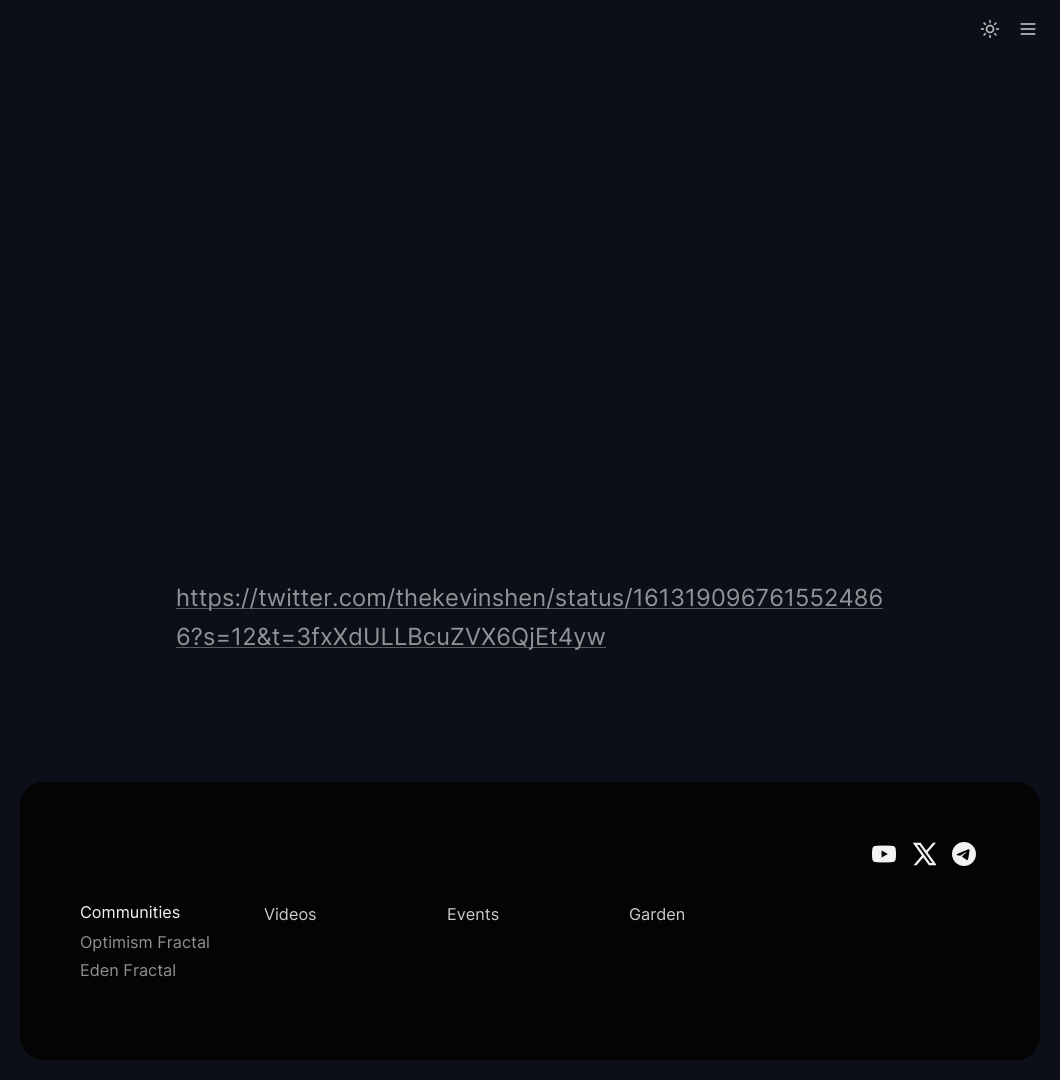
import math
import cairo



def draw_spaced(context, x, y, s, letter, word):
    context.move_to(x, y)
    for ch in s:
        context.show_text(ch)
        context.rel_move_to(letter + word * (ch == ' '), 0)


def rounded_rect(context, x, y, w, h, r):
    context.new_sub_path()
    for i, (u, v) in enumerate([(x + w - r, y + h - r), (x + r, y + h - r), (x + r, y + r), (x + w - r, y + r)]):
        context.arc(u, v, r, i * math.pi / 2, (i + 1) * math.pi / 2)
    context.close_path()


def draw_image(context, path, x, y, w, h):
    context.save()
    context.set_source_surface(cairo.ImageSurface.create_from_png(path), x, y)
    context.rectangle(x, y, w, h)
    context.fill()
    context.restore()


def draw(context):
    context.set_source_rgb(12 / 255, 15 / 255, 24 / 255)
    context.paint()
    draw_image(context, "images/1.png", 980, 19, 20, 20)
    draw_image(context, "images/2.png", 1020, 23, 16, 12)
    context.set_source_rgb(91 / 255, 91 / 255, 91 / 255)
    context.rectangle(176, 608, 707, 1)
    context.fill()
    context.rectangle(176, 647, 430, 1)
    context.fill()
    context.set_source_rgb(5 / 255, 4 / 255, 4 / 255)
    rounded_rect(context, 20, 782, 1020, 278, 24)
    context.fill()
    draw_image(context, "images/3.png", 872, 845, 24, 18)
    draw_image(context, "images/4.png", 912, 842, 24, 24)
    draw_image(context, "images/5.png", 952, 842, 24, 24)
    context.select_font_face("Inter")
    context.set_font_size(23.65)
    context.set_source_rgb(146 / 255, 147 / 255, 150 / 255)
    draw_spaced(context, 176, 606, "https://twitter.com/thekevinshen/status/161319096761552486", 0.1, 0)
    draw_spaced(context, 176, 645, "6?s=12&t=3fxXdULLBcuZVX6QjEt4yw", 0.1, 0)
    context.set_font_size(16.25)
    context.set_source_rgb(243 / 255, 243 / 255, 243 / 255)
    context.move_to(80, 918)
    context.show_text("Communities")
    context.set_source_rgb(144 / 255, 144 / 255, 144 / 255)
    context.move_to(80, 948)
    context.show_text("Optimism Fractal")
    context.move_to(80, 976)
    context.show_text("Eden Fractal")
    context.set_source_rgb(204 / 255, 204 / 255, 204 / 255)
    context.move_to(264, 920)
    context.show_text("Videos")
    context.move_to(447, 920)
    context.show_text("Events")
    context.move_to(629, 920)
    context.show_text("Garden")


surface = cairo.ImageSurface(cairo.Format.RGB24, 1060, 1080)
context = cairo.Context(surface)
options = cairo.FontOptions()
options.set_hint_metrics(cairo.HintMetrics.OFF)
options.set_hint_style(cairo.HintStyle.NONE)
context.set_font_options(options)
context.set_miter_limit(4)
draw(context)
surface.write_to_png("out.png")
